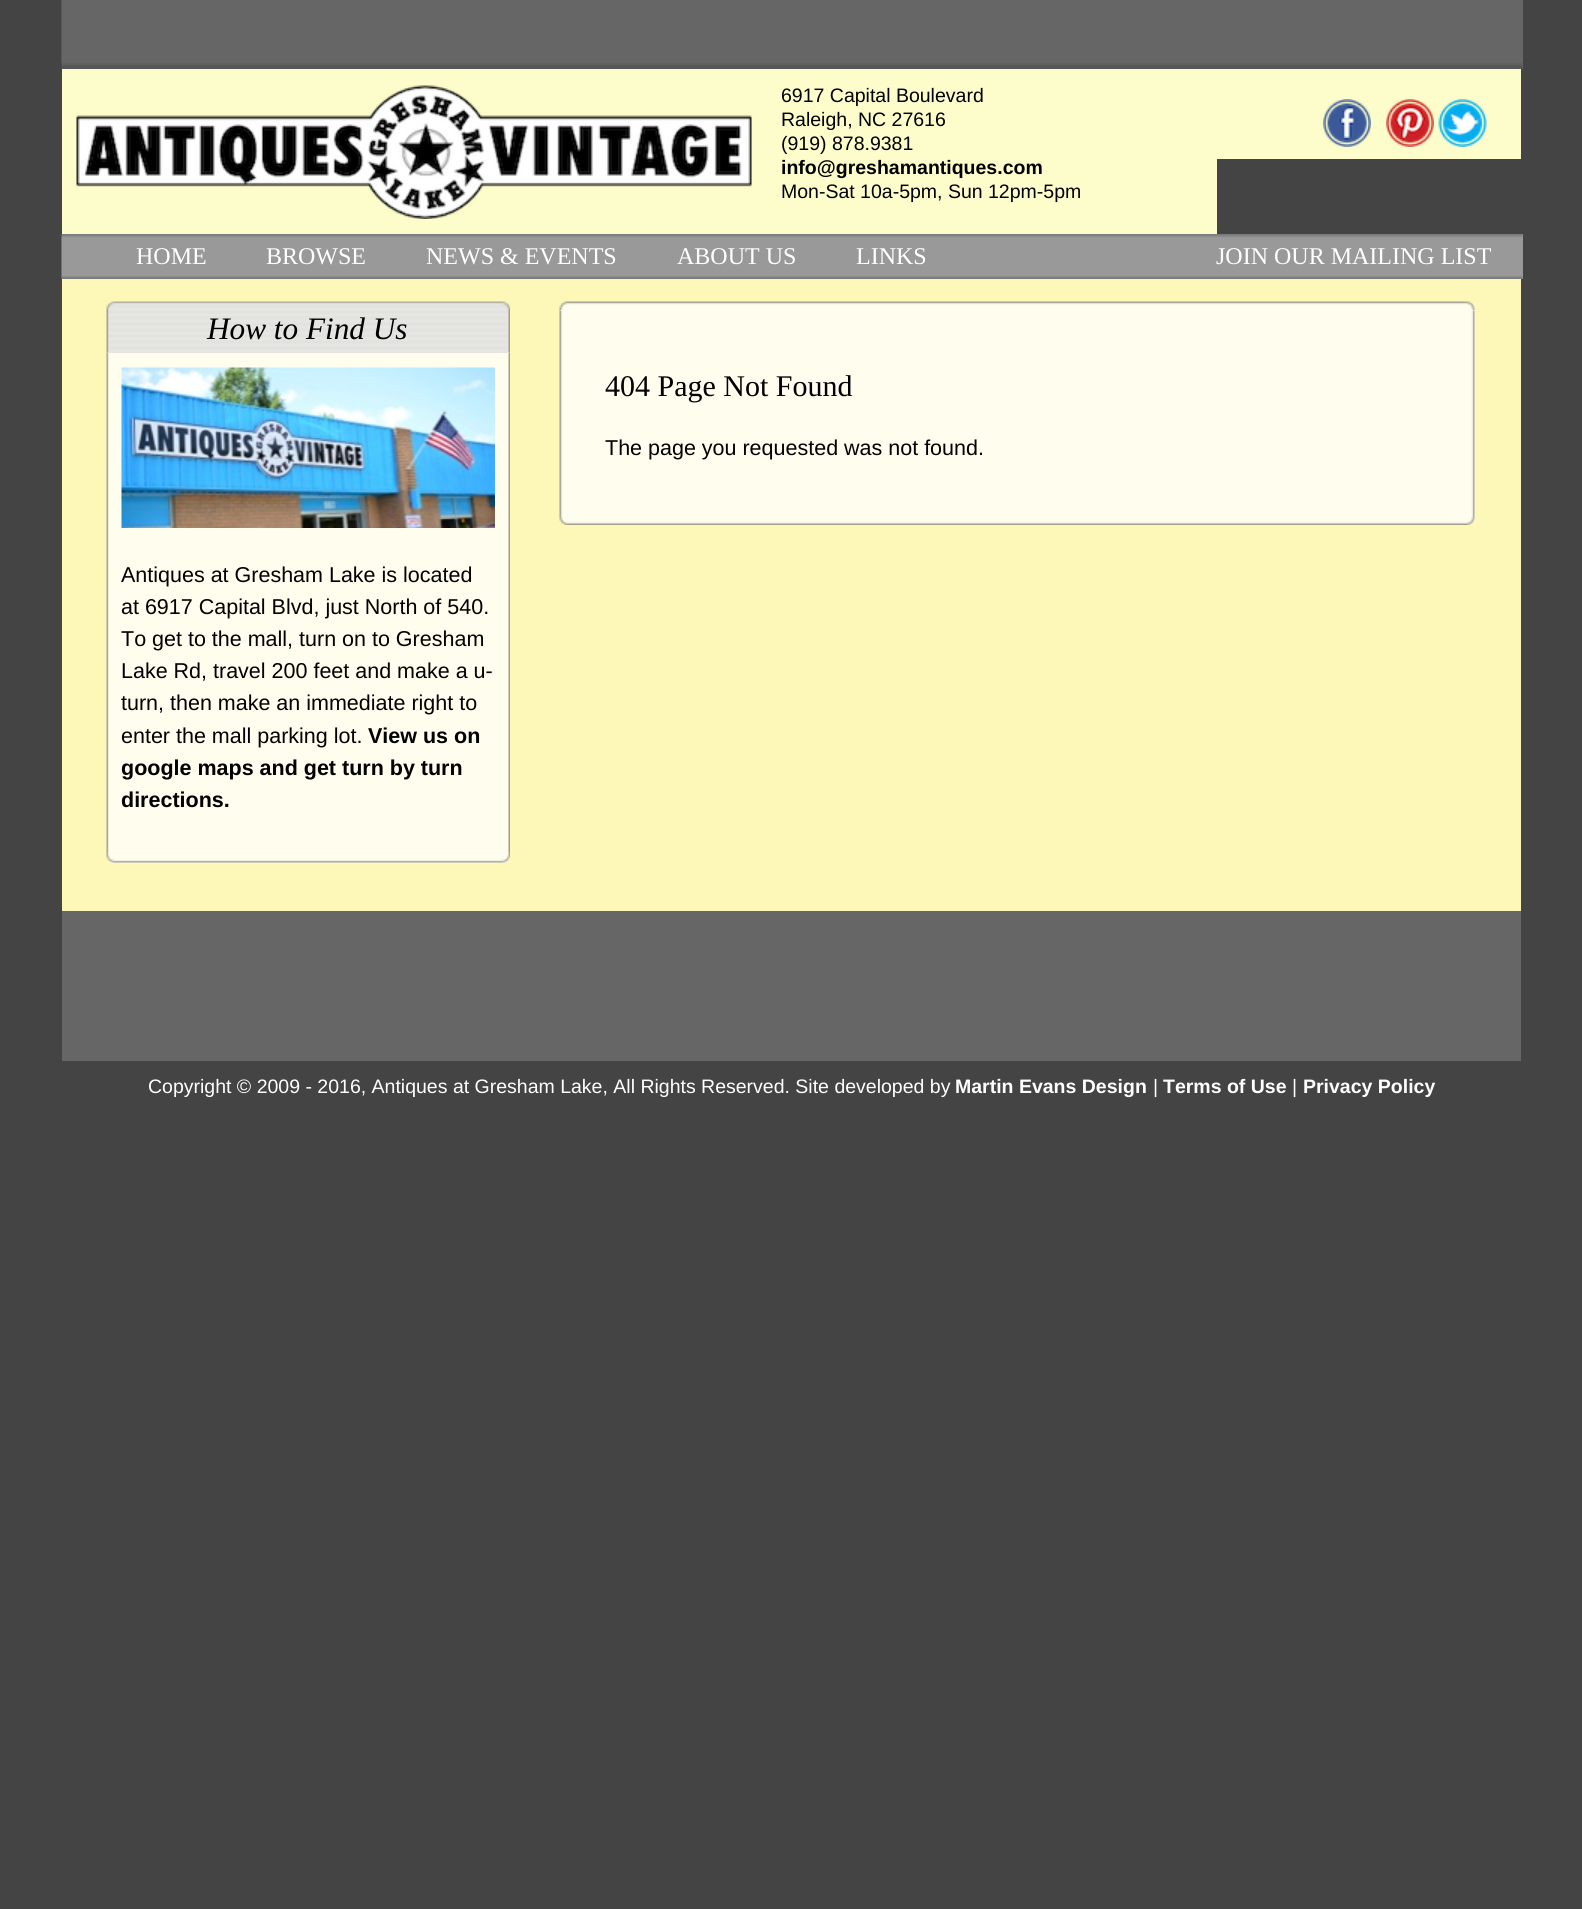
import math
import cairo



def draw_image(context, path, x, y, w, h):
    context.save()
    context.set_source_surface(cairo.ImageSurface.create_from_png(path), x, y)
    context.rectangle(x, y, w, h)
    context.fill()
    context.restore()


def draw(context):
    context.set_source_rgb(68 / 255, 68 / 255, 68 / 255)
    context.paint()
    context.set_source_rgb(102 / 255, 102 / 255, 102 / 255)
    context.rectangle(1522, 0, 1, 69)
    context.fill()
    draw_image(context, "images/1.png", 61, 0, 1462, 69)
    context.set_source_rgb(253 / 255, 253 / 255, 203 / 255)
    context.rectangle(62, 69, 1155, 165)
    context.fill()
    draw_image(context, "images/2.png", 76, 85, 676, 134)
    context.rectangle(1217, 69, 304, 90)
    context.fill()
    draw_image(context, "images/3.png", 1323, 99, 48, 48)
    draw_image(context, "images/4.png", 1386, 99, 48, 48)
    draw_image(context, "images/5.png", 1438, 99, 49, 48)
    context.set_source_rgb(153 / 255, 153 / 255, 153 / 255)
    context.rectangle(1522, 234, 1, 45)
    context.fill()
    draw_image(context, "images/6.png", 61, 234, 1462, 45)
    context.set_source_rgb(254 / 255, 248 / 255, 184 / 255)
    context.rectangle(62, 279, 1459, 632)
    context.fill()
    draw_image(context, "images/8.png", 106, 352, 404, 502)
    context.set_source_rgb(226 / 255, 226 / 255, 222 / 255)
    context.rectangle(107, 352, 403, 1)
    context.fill()
    draw_image(context, "images/7.png", 106, 301, 404, 52)
    draw_image(context, "images/9.png", 121, 367, 374, 161)
    context.set_source_rgb(1, 253 / 255, 237 / 255)
    context.rectangle(107, 862, 403, 1)
    context.fill()
    draw_image(context, "images/10.png", 106, 853, 404, 10)
    context.rectangle(1474, 311, 1, 214)
    context.fill()
    draw_image(context, "images/12.png", 559, 310, 916, 206)
    context.rectangle(560, 302, 915, 9)
    context.fill()
    draw_image(context, "images/11.png", 559, 301, 916, 10)
    draw_image(context, "images/13.png", 559, 516, 916, 9)
    context.set_source_rgb(102 / 255, 102 / 255, 102 / 255)
    context.rectangle(62, 911, 1459, 150)
    context.fill()
    context.select_font_face("Liberation Sans")
    context.set_font_size(19.5)
    context.set_source_rgb(0, 0, 0)
    context.move_to(781, 102)
    context.show_text("6917 Capital Boulevard")
    context.move_to(781, 126)
    context.show_text("Raleigh, NC 27616")
    context.move_to(781, 150)
    context.show_text("(919) 878.9381")
    context.select_font_face("Liberation Sans", cairo.FontSlant.NORMAL, cairo.FontWeight.BOLD)
    context.move_to(781, 174)
    context.show_text("info@greshamantiques.com")
    context.select_font_face("Liberation Sans")
    context.move_to(781, 198)
    context.show_text("Mon-Sat 10a-5pm, Sun 12pm-5pm")
    context.select_font_face("Liberation Serif")
    context.set_font_size(24)
    context.set_source_rgb(1, 1, 1)
    context.move_to(136, 264)
    context.show_text("HOME")
    context.move_to(266, 264)
    context.show_text("BROWSE")
    context.move_to(426, 264)
    context.show_text("NEWS & EVENTS")
    context.move_to(677, 264)
    context.show_text("ABOUT US")
    context.move_to(856, 264)
    context.show_text("LINKS")
    context.move_to(1216, 264)
    context.show_text("JOIN OUR MAILING LIST")
    context.select_font_face("Liberation Serif", cairo.FontSlant.ITALIC)
    context.set_font_size(31.25)
    context.set_source_rgb(0, 0, 0)
    context.move_to(207, 339)
    context.show_text("How to Find Us")
    context.select_font_face("Liberation Sans")
    context.set_font_size(21.5)
    context.move_to(121, 582)
    context.show_text("Antiques at Gresham Lake is located")
    context.move_to(121, 614)
    context.show_text("at 6917 Capital Blvd, just North of 540.")
    context.move_to(121, 646)
    context.show_text("To get to the mall, turn on to Gresham")
    context.move_to(121, 678)
    context.show_text("Lake Rd, travel 200 feet and make a u-")
    context.move_to(121, 710)
    context.show_text("turn, then make an immediate right to")
    context.move_to(121, 743)
    context.show_text("enter the mall parking lot.")
    context.select_font_face("Liberation Sans", cairo.FontSlant.NORMAL, cairo.FontWeight.BOLD)
    context.move_to(368, 743)
    context.show_text("View us on")
    context.move_to(121, 775)
    context.show_text("google maps and get turn by turn")
    context.move_to(121, 807)
    context.show_text("directions.")
    context.select_font_face("Liberation Serif")
    context.set_font_size(30)
    context.move_to(605, 396)
    context.show_text("404 Page Not Found")
    context.select_font_face("Liberation Sans")
    context.set_font_size(21.5)
    context.move_to(605, 455)
    context.show_text("The page you requested was not found.")
    context.set_font_size(19.5)
    context.set_source_rgb(1, 1, 1)
    context.move_to(148, 1093)
    context.show_text("Copyright © 2009 - 2016, Antiques at Gresham Lake, All Rights Reserved. Site developed by")
    context.select_font_face("Liberation Sans", cairo.FontSlant.NORMAL, cairo.FontWeight.BOLD)
    context.move_to(955, 1093)
    context.show_text("Martin Evans Design")
    context.select_font_face("Liberation Sans")
    context.move_to(1153, 1093)
    context.show_text("|")
    context.select_font_face("Liberation Sans", cairo.FontSlant.NORMAL, cairo.FontWeight.BOLD)
    context.move_to(1163, 1093)
    context.show_text("Terms of Use")
    context.select_font_face("Liberation Sans")
    context.move_to(1292, 1093)
    context.show_text("|")
    context.select_font_face("Liberation Sans", cairo.FontSlant.NORMAL, cairo.FontWeight.BOLD)
    context.move_to(1303, 1093)
    context.show_text("Privacy Policy")


surface = cairo.ImageSurface(cairo.Format.RGB24, 1582, 1909)
context = cairo.Context(surface)
options = cairo.FontOptions()
options.set_hint_metrics(cairo.HintMetrics.OFF)
options.set_hint_style(cairo.HintStyle.NONE)
context.set_font_options(options)
context.set_miter_limit(4)
draw(context)
surface.write_to_png("out.png")
